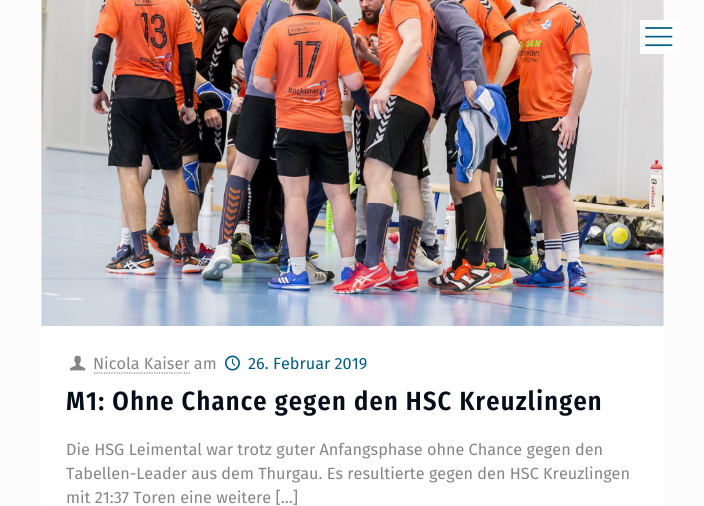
import math
import cairo



def draw_spaced(context, x, y, s, letter, word):
    context.move_to(x, y)
    for ch in s:
        context.show_text(ch)
        context.rel_move_to(letter + word * (ch == ' '), 0)


def draw_image(context, path, x, y, w, h):
    context.save()
    context.set_source_surface(cairo.ImageSurface.create_from_png(path), x, y)
    context.rectangle(x, y, w, h)
    context.fill()
    context.restore()


def draw(context):
    context.set_source_rgb(252 / 255, 252 / 255, 252 / 255)
    context.paint()
    context.set_source_rgb(1, 1, 1)
    context.rectangle(41, 0, 623, 506)
    context.fill()
    draw_image(context, "images/2.png", 41, 0, 623, 326)
    context.rectangle(640, 20, 38, 34)
    context.fill()
    draw_image(context, "images/1.png", 645, 27, 28, 20)
    draw_image(context, "images/3.png", 70, 355, 16, 16)
    context.new_path()
    context.move_to(94, 373)
    context.line_to(190, 373)
    context.set_source_rgb(133 / 255, 133 / 255, 133 / 255)
    context.set_line_width(1.2)
    context.set_dash([1.25, 1.25])
    context.stroke()
    draw_image(context, "images/4.png", 225, 355, 15, 16)
    context.select_font_face("Fira Sans")
    context.set_font_size(16.25)
    context.move_to(93, 369)
    context.show_text("Nicola Kaiser am")
    context.set_source_rgb(0, 93 / 255, 134 / 255)
    context.move_to(248, 369)
    context.show_text("26. Februar 2019")
    context.select_font_face("Fira Sans Condensed SemiBold")
    context.set_font_size(26.25)
    context.set_source_rgb(4 / 255, 13 / 255, 25 / 255)
    draw_spaced(context, 66, 410, "M1: Ohne Chance gegen den HSC Kreuzlingen", 1.25, 0)
    context.select_font_face("Fira Sans")
    context.set_font_size(16.25)
    context.set_source_rgb(133 / 255, 133 / 255, 133 / 255)
    context.move_to(66, 455)
    context.show_text("Die HSG Leimental war trotz guter Anfangsphase ohne Chance gegen den")
    context.move_to(66, 479)
    context.show_text("Tabellen-Leader aus dem Thurgau. Es resultierte gegen den HSC Kreuzlingen")
    context.move_to(66, 503)
    context.show_text("mit 21:37 Toren eine weitere […]")


surface = cairo.ImageSurface(cairo.Format.RGB24, 704, 506)
context = cairo.Context(surface)
options = cairo.FontOptions()
options.set_hint_metrics(cairo.HintMetrics.OFF)
options.set_hint_style(cairo.HintStyle.NONE)
context.set_font_options(options)
context.set_miter_limit(4)
draw(context)
surface.write_to_png("out.png")
